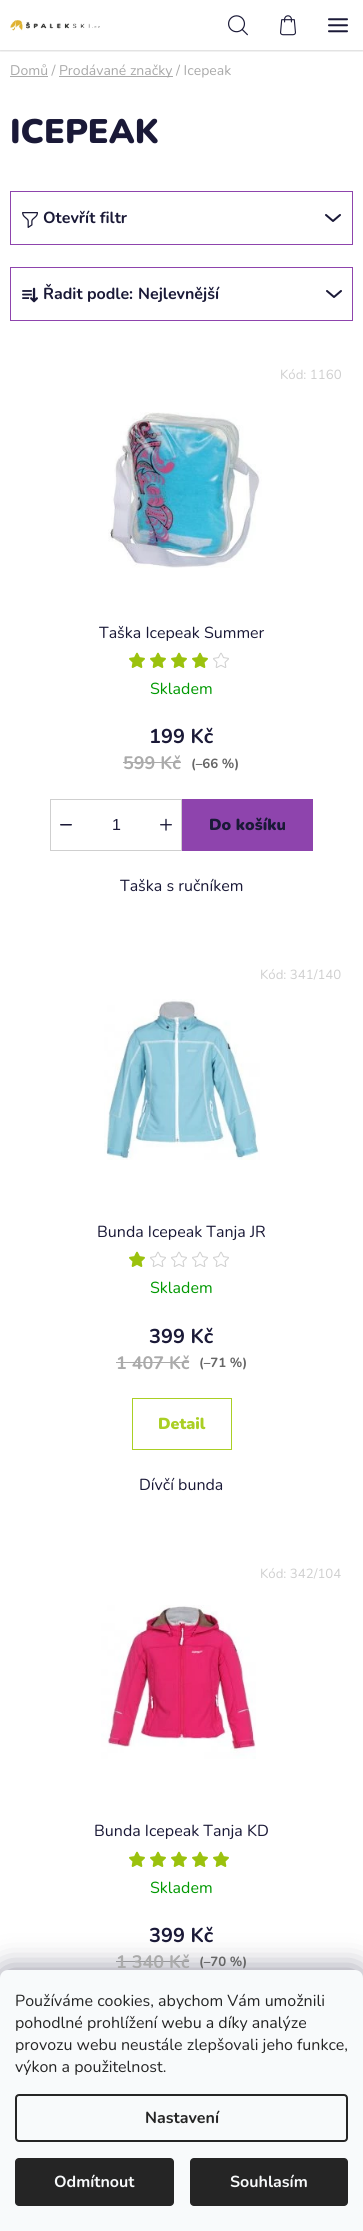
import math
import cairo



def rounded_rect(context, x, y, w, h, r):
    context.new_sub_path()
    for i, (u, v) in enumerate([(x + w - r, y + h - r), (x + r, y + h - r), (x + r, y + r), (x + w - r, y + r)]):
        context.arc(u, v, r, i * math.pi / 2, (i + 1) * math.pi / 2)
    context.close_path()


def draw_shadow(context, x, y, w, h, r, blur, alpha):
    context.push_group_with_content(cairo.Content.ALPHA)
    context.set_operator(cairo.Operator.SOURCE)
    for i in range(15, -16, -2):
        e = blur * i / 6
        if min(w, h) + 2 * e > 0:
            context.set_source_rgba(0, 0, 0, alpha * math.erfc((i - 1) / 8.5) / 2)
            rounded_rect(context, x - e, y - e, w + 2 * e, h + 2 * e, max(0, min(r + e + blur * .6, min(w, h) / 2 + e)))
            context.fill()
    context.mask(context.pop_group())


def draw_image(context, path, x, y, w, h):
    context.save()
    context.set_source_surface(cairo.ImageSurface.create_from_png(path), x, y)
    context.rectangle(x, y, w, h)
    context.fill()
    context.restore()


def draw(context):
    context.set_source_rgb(1, 1, 1)
    context.paint()
    context.save()
    context.rectangle(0, 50, 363, 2)
    context.clip()
    context.set_source_rgb(0, 0, 0)
    draw_shadow(context, 0, 1, 363, 50, 0, 1, 0.16)
    context.restore()
    draw_image(context, "images/1.png", 10, 20, 90, 11)
    draw_image(context, "images/2.png", 228, 15, 20, 21)
    draw_image(context, "images/3.png", 280, 15, 16, 21)
    draw_image(context, "images/4.png", 328, 18, 20, 15)
    context.set_source_rgb(170 / 255, 170 / 255, 170 / 255)
    context.rectangle(10, 76, 38, 1)
    context.fill()
    context.rectangle(59, 76, 114, 1)
    context.fill()
    context.rectangle(10.5, 191.5, 342, 53)
    context.set_source_rgb(142 / 255, 68 / 255, 173 / 255)
    context.set_line_width(1)
    context.stroke()
    draw_image(context, "images/5.png", 22, 212, 16, 16)
    draw_image(context, "images/6.png", 325, 214, 16, 8)
    context.rectangle(10.5, 267.5, 342, 53)
    context.stroke()
    draw_image(context, "images/7.png", 22, 287, 16, 16)
    draw_image(context, "images/6.png", 326, 290, 16, 8)
    draw_image(context, "images/8.png", 108, 412, 154, 156)
    draw_image(context, "images/9.png", 129, 652, 16, 16)
    draw_image(context, "images/9.png", 150, 652, 16, 16)
    draw_image(context, "images/9.png", 171, 652, 16, 16)
    draw_image(context, "images/9.png", 192, 652, 16, 16)
    draw_image(context, "images/10.png", 213, 652, 16, 16)
    context.set_source_rgb(170 / 255, 170 / 255, 170 / 255)
    context.rectangle(123, 762, 58, 1)
    context.fill()
    context.rectangle(50.5, 799.5, 131, 51)
    context.set_source_rgb(207 / 255, 207 / 255, 207 / 255)
    context.stroke()
    draw_image(context, "images/11.png", 60, 824, 12, 2)
    draw_image(context, "images/12.png", 160, 818, 12, 13)
    context.set_source_rgb(142 / 255, 68 / 255, 173 / 255)
    context.rectangle(182, 799, 131, 52)
    context.fill()
    draw_image(context, "images/13.png", 104, 999, 156, 161)
    draw_image(context, "images/9.png", 129, 1251, 16, 16)
    draw_image(context, "images/10.png", 150, 1251, 16, 16)
    draw_image(context, "images/10.png", 171, 1251, 16, 16)
    draw_image(context, "images/10.png", 192, 1251, 16, 16)
    draw_image(context, "images/10.png", 213, 1251, 16, 16)
    context.set_source_rgb(170 / 255, 170 / 255, 170 / 255)
    context.rectangle(116, 1362, 73, 1)
    context.fill()
    context.rectangle(132.5, 1398.5, 99, 51)
    context.set_source_rgb(170 / 255, 207 / 255, 36 / 255)
    context.stroke()
    draw_image(context, "images/14.png", 101, 1605, 155, 154)
    draw_image(context, "images/9.png", 129, 1851, 16, 16)
    draw_image(context, "images/9.png", 150, 1851, 16, 16)
    draw_image(context, "images/9.png", 171, 1851, 16, 16)
    draw_image(context, "images/9.png", 192, 1851, 16, 16)
    draw_image(context, "images/9.png", 213, 1851, 16, 16)
    context.set_source_rgb(170 / 255, 170 / 255, 170 / 255)
    context.rectangle(116, 1961, 73, 1)
    context.fill()
    context.set_source_rgb(27 / 255, 25 / 255, 57 / 255)
    draw_shadow(context, 0, 1970, 363, 261, 8, 15, 0.5)
    context.set_source_rgb(248 / 255, 250 / 255, 251 / 255)
    context.new_path()
    context.move_to(8, 1970)
    context.line_to(355, 1970)
    context.curve_to(359.5, 1970, 363, 1973.5, 363, 1978)
    context.line_to(363, 2231)
    context.line_to(0, 2231)
    context.line_to(0, 1978)
    context.curve_to(0, 1973.5, 3.5, 1970, 8, 1970)
    context.close_path()
    context.fill()
    rounded_rect(context, 16, 2095, 331, 46, 3)
    context.set_source_rgb(37 / 255, 37 / 255, 37 / 255)
    context.set_line_width(2)
    context.stroke()
    rounded_rect(context, 15, 2158, 159, 48, 4)
    context.fill()
    rounded_rect(context, 190, 2158, 158, 48, 4)
    context.fill()
    context.select_font_face("Nunito")
    context.set_font_size(14)
    context.set_source_rgb(170 / 255, 170 / 255, 170 / 255)
    context.move_to(10, 75)
    context.show_text("Domů /")
    context.move_to(59, 75)
    context.show_text("Prodávané značky / Icepeak")
    context.select_font_face("Nunito Black")
    context.set_font_size(34)
    context.set_source_rgb(26 / 255, 25 / 255, 55 / 255)
    context.move_to(10, 143)
    context.show_text("ICEPEAK")
    context.select_font_face("Nunito", cairo.FontSlant.NORMAL, cairo.FontWeight.BOLD)
    context.set_font_size(16)
    context.move_to(43, 223)
    context.show_text("Otevřít filtr")
    context.move_to(43, 299)
    context.show_text("Řadit podle:")
    context.move_to(138, 299)
    context.show_text("Nejlevnější")
    context.select_font_face("Nunito")
    context.set_font_size(13.25)
    context.set_source_rgb(207 / 255, 207 / 255, 207 / 255)
    context.move_to(280, 379)
    context.show_text("Kód: 1160")
    context.set_font_size(16)
    context.set_source_rgb(26 / 255, 25 / 255, 55 / 255)
    context.move_to(99, 638)
    context.show_text("Taška Icepeak Summer")
    context.set_source_rgb(0, 153 / 255, 1 / 255)
    context.move_to(150, 694)
    context.show_text("Skladem")
    context.select_font_face("Nunito", cairo.FontSlant.NORMAL, cairo.FontWeight.BOLD)
    context.set_font_size(20)
    context.set_source_rgb(26 / 255, 25 / 255, 55 / 255)
    context.move_to(149, 743)
    context.show_text("199 Kč")
    context.set_font_size(18)
    context.set_source_rgb(170 / 255, 170 / 255, 170 / 255)
    context.move_to(123, 769)
    context.show_text("599 Kč")
    context.set_font_size(13.25)
    context.set_source_rgb(102 / 255, 102 / 255, 102 / 255)
    context.move_to(191, 768)
    context.show_text("(–66 %)")
    context.select_font_face("Liberation Sans")
    context.set_font_size(16)
    context.set_source_rgb(26 / 255, 25 / 255, 55 / 255)
    context.move_to(112, 830)
    context.show_text("1")
    context.select_font_face("Nunito Black")
    context.move_to(209, 830)
    context.show_text("Do košíku")
    context.select_font_face("Nunito")
    context.move_to(120, 891)
    context.show_text("Taška s ručníkem")
    context.set_font_size(13.25)
    context.set_source_rgb(207 / 255, 207 / 255, 207 / 255)
    context.move_to(260, 979)
    context.show_text("Kód: 341/140")
    context.set_font_size(16)
    context.set_source_rgb(26 / 255, 25 / 255, 55 / 255)
    context.move_to(97, 1237)
    context.show_text("Bunda Icepeak Tanja JR")
    context.set_source_rgb(0, 153 / 255, 1 / 255)
    context.move_to(150, 1293)
    context.show_text("Skladem")
    context.select_font_face("Nunito", cairo.FontSlant.NORMAL, cairo.FontWeight.BOLD)
    context.set_font_size(20)
    context.set_source_rgb(26 / 255, 25 / 255, 55 / 255)
    context.move_to(149, 1343)
    context.show_text("399 Kč")
    context.set_font_size(18)
    context.set_source_rgb(170 / 255, 170 / 255, 170 / 255)
    context.move_to(116, 1369)
    context.show_text("1 407 Kč")
    context.set_font_size(13.25)
    context.set_source_rgb(102 / 255, 102 / 255, 102 / 255)
    context.move_to(199, 1367)
    context.show_text("(–71 %)")
    context.select_font_face("Nunito Black")
    context.set_font_size(16)
    context.set_source_rgb(170 / 255, 207 / 255, 36 / 255)
    context.move_to(158, 1429)
    context.show_text("Detail")
    context.select_font_face("Nunito")
    context.set_source_rgb(26 / 255, 25 / 255, 55 / 255)
    context.move_to(139, 1490)
    context.show_text("Dívčí bunda")
    context.set_font_size(13.25)
    context.set_source_rgb(207 / 255, 207 / 255, 207 / 255)
    context.move_to(260, 1578)
    context.show_text("Kód: 342/104")
    context.set_font_size(16)
    context.set_source_rgb(26 / 255, 25 / 255, 55 / 255)
    context.move_to(94, 1836)
    context.show_text("Bunda Icepeak Tanja KD")
    context.set_source_rgb(0, 153 / 255, 1 / 255)
    context.move_to(150, 1893)
    context.show_text("Skladem")
    context.select_font_face("Nunito", cairo.FontSlant.NORMAL, cairo.FontWeight.BOLD)
    context.set_font_size(20)
    context.set_source_rgb(26 / 255, 25 / 255, 55 / 255)
    context.move_to(149, 1942)
    context.show_text("399 Kč")
    context.set_font_size(18)
    context.set_source_rgb(170 / 255, 170 / 255, 170 / 255)
    context.move_to(116, 1968)
    context.show_text("1 340 Kč")
    context.set_font_size(13.25)
    context.set_source_rgb(102 / 255, 102 / 255, 102 / 255)
    context.move_to(199, 1966)
    context.show_text("(–70 %)")
    context.select_font_face("Nunito")
    context.set_font_size(16)
    context.set_source_rgb(37 / 255, 37 / 255, 37 / 255)
    context.move_to(15, 2006)
    context.show_text("Používáme cookies, abychom Vám umožnili")
    context.move_to(15, 2028)
    context.show_text("pohodlné prohlížení webu a díky analýze")
    context.move_to(15, 2050)
    context.show_text("provozu webu neustále zlepšovali jeho funkce,")
    context.move_to(15, 2072)
    context.show_text("výkon a použitelnost.")
    context.select_font_face("Nunito", cairo.FontSlant.NORMAL, cairo.FontWeight.BOLD)
    context.move_to(145, 2123)
    context.show_text("Nastavení")
    context.set_source_rgb(248 / 255, 250 / 255, 251 / 255)
    context.move_to(54, 2187)
    context.show_text("Odmítnout")
    context.move_to(230, 2187)
    context.show_text("Souhlasím")


surface = cairo.ImageSurface(cairo.Format.RGB24, 363, 2231)
context = cairo.Context(surface)
options = cairo.FontOptions()
options.set_hint_metrics(cairo.HintMetrics.OFF)
options.set_hint_style(cairo.HintStyle.NONE)
context.set_font_options(options)
context.set_miter_limit(4)
draw(context)
surface.write_to_png("out.png")
